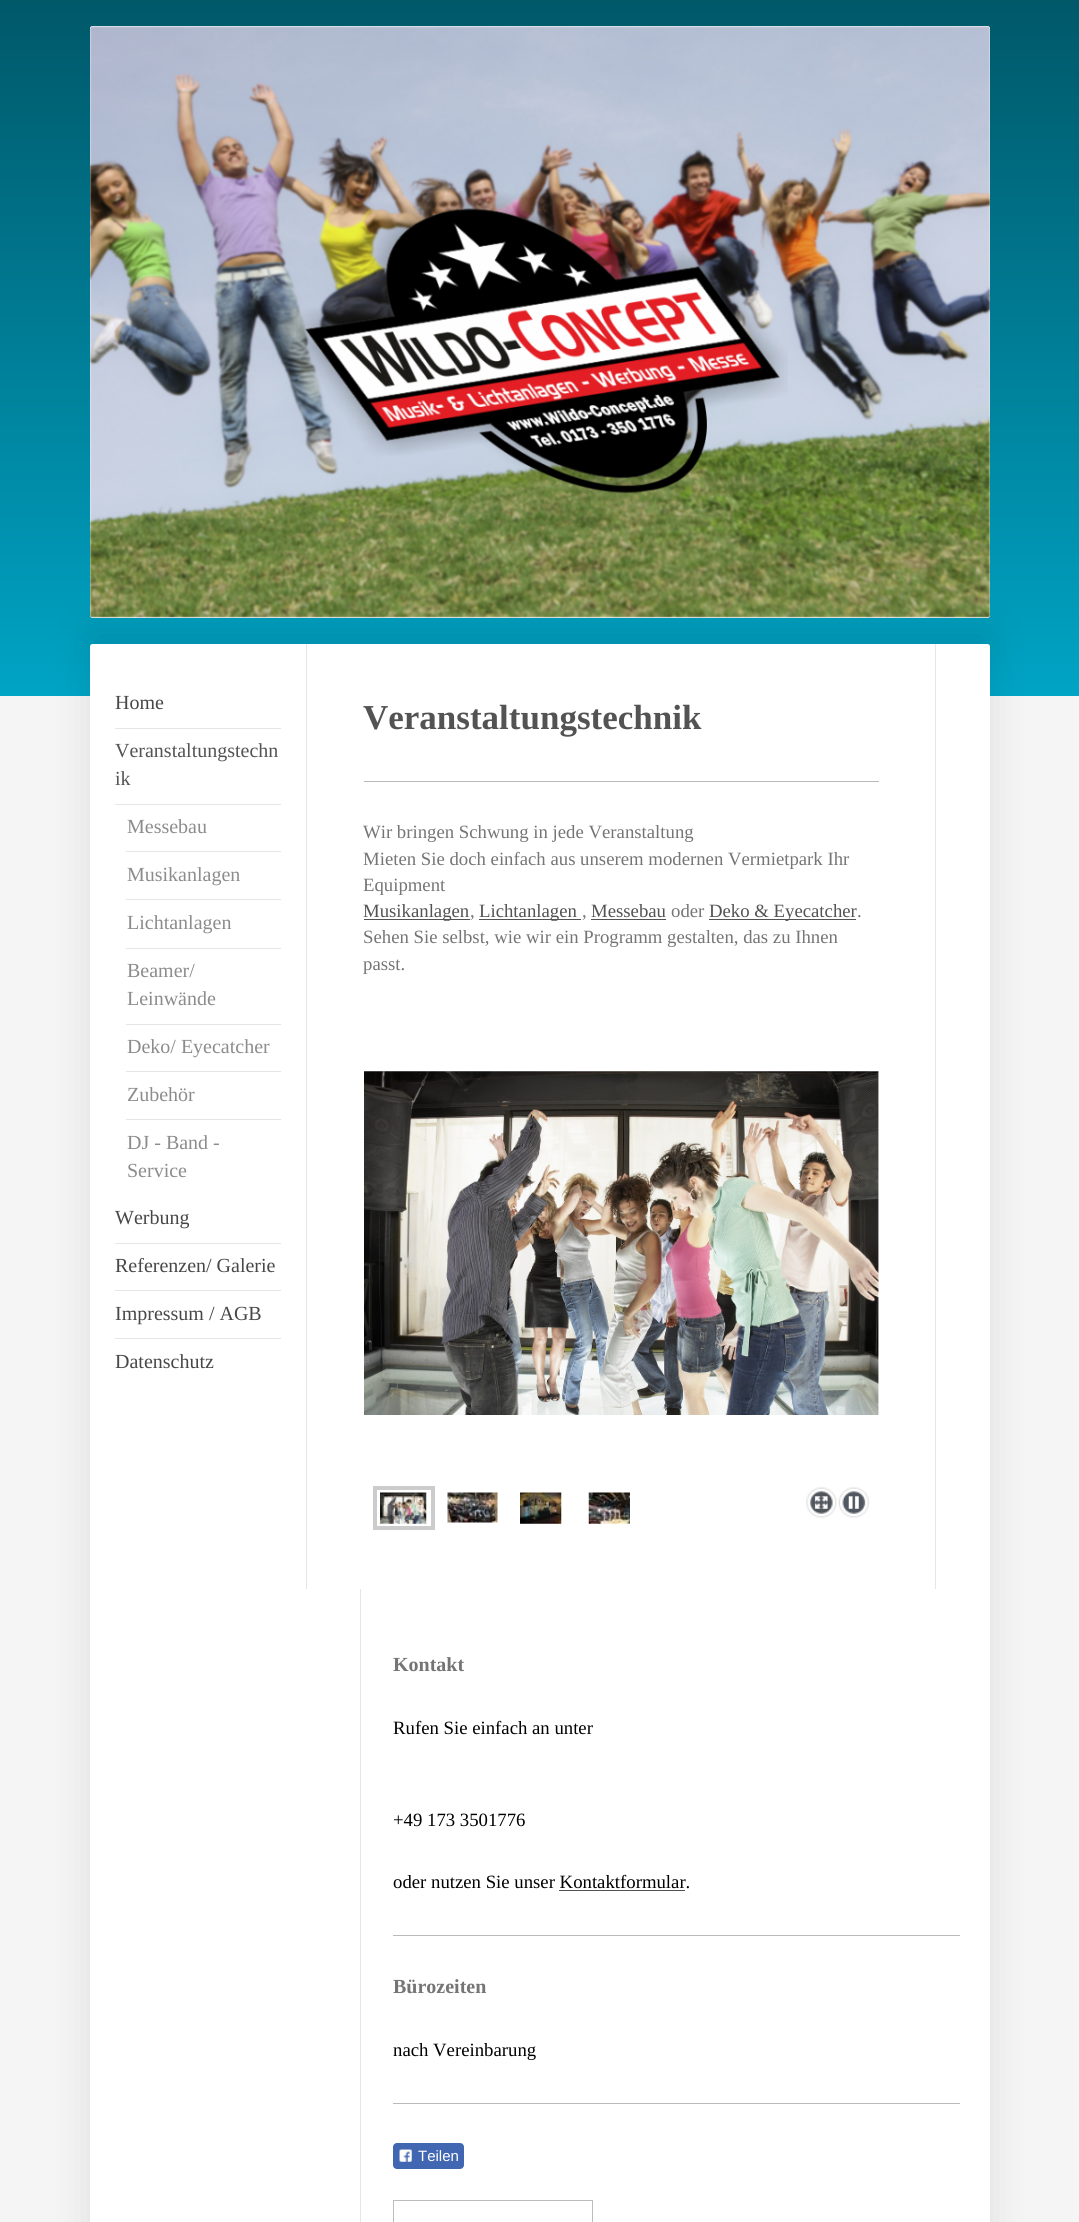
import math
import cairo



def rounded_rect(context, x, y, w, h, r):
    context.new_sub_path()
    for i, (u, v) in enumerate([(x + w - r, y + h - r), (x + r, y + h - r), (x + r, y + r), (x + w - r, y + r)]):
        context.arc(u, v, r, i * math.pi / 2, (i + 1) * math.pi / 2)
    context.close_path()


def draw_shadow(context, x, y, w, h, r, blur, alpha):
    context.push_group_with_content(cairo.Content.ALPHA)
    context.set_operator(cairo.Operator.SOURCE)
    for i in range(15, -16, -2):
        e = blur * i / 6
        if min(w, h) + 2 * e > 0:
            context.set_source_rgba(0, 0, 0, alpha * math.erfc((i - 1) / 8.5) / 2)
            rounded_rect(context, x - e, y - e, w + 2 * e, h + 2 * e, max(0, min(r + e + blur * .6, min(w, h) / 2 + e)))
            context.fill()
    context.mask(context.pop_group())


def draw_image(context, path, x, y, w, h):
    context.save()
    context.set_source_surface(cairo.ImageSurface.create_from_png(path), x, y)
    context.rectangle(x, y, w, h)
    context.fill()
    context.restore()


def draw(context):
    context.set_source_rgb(245 / 255, 245 / 255, 245 / 255)
    context.paint()
    gradient = cairo.LinearGradient(0, 696, 0, 0)
    gradient.add_color_stop_rgba(0, 0, 164 / 255, 197 / 255, 1)
    gradient.add_color_stop_rgba(1, 0, 88 / 255, 105 / 255, 1)
    context.set_source(gradient)
    context.rectangle(0, 0, 1079, 696)
    context.fill()
    draw_image(context, "images/1.png", 90, 26, 900, 592)
    context.set_source_rgb(0, 0, 0)
    draw_shadow(context, 90, 631, 900, 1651, 2.5, 19, 0.1)
    context.set_source_rgb(238 / 255, 238 / 255, 238 / 255)
    rounded_rect(context, 90, 26, 900, 592, 2.5)
    context.fill()
    draw_image(context, "images/2.png", 90, 26, 900, 592)
    draw_image(context, "images/3.png", 296, 191, 492, 303)
    context.set_source_rgb(1, 1, 1)
    rounded_rect(context, 90, 644, 900, 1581, 2.5)
    context.fill()
    context.set_source_rgb(230 / 255, 230 / 255, 230 / 255)
    context.rectangle(115, 728, 166, 1)
    context.fill()
    context.rectangle(115, 804, 166, 1)
    context.fill()
    context.rectangle(126, 851, 155, 1)
    context.fill()
    context.rectangle(126, 899, 155, 1)
    context.fill()
    context.rectangle(126, 948, 155, 1)
    context.fill()
    context.rectangle(126, 1024, 155, 1)
    context.fill()
    context.rectangle(126, 1071, 155, 1)
    context.fill()
    context.rectangle(126, 1119, 155, 1)
    context.fill()
    context.rectangle(115, 1243, 166, 1)
    context.fill()
    context.rectangle(115, 1290, 166, 1)
    context.fill()
    context.rectangle(115, 1338, 166, 1)
    context.fill()
    context.rectangle(935, 644, 1, 945)
    context.fill()
    context.rectangle(306, 644, 1, 945)
    context.fill()
    context.set_source_rgb(186 / 255, 186 / 255, 186 / 255)
    context.rectangle(364, 781, 515, 1)
    context.fill()
    context.set_source_rgb(83 / 255, 83 / 255, 83 / 255)
    context.rectangle(364, 919, 106, 1)
    context.fill()
    context.rectangle(479, 919, 102, 1)
    context.fill()
    context.rectangle(591, 919, 75, 1)
    context.fill()
    context.rectangle(709, 919, 147, 1)
    context.fill()
    draw_image(context, "images/4.png", 364, 1071, 515, 344)
    context.rectangle(375, 1488, 58, 40)
    context.set_source_rgb(204 / 255, 204 / 255, 204 / 255)
    context.set_line_width(4)
    context.stroke()
    draw_image(context, "images/5.png", 380, 1492, 47, 32)
    draw_image(context, "images/6.png", 447, 1492, 51, 31)
    draw_image(context, "images/7.png", 520, 1492, 42, 32)
    draw_image(context, "images/8.png", 588, 1492, 42, 32)
    draw_image(context, "images/9.png", 806, 1487, 31, 31)
    draw_image(context, "images/10.png", 838, 1487, 32, 31)
    context.set_source_rgb(230 / 255, 230 / 255, 230 / 255)
    context.rectangle(360, 1589, 1, 633)
    context.fill()
    context.set_source_rgb(83 / 255, 83 / 255, 83 / 255)
    context.rectangle(559, 1890, 126, 1)
    context.fill()
    context.set_source_rgb(186 / 255, 186 / 255, 186 / 255)
    context.rectangle(393, 1935, 567, 1)
    context.fill()
    context.rectangle(393, 2103, 567, 1)
    context.fill()
    context.set_source_rgb(66 / 255, 103 / 255, 178 / 255)
    rounded_rect(context, 393, 2143, 71, 26, 4)
    context.fill()
    draw_image(context, "images/11.png", 399, 2149, 13, 13)
    context.rectangle(393.5, 2200.5, 199, 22)
    context.set_source_rgb(188 / 255, 188 / 255, 188 / 255)
    context.set_line_width(1)
    context.stroke()
    context.select_font_face("Liberation Serif")
    context.set_font_size(20)
    context.set_source_rgb(71 / 255, 71 / 255, 71 / 255)
    context.move_to(115, 709)
    context.show_text("Home")
    context.set_source_rgb(83 / 255, 83 / 255, 83 / 255)
    context.move_to(115, 757)
    context.show_text("Veranstaltungstechn")
    context.move_to(115, 785)
    context.show_text("ik")
    context.set_source_rgb(140 / 255, 140 / 255, 140 / 255)
    context.move_to(127, 833)
    context.show_text("Messebau")
    context.move_to(127, 881)
    context.show_text("Musikanlagen")
    context.move_to(127, 929)
    context.show_text("Lichtanlagen")
    context.move_to(127, 977)
    context.show_text("Beamer/")
    context.move_to(127, 1005)
    context.show_text("Leinwände")
    context.move_to(127, 1053)
    context.show_text("Deko/ Eyecatcher")
    context.move_to(127, 1101)
    context.show_text("Zubehör")
    context.move_to(127, 1149)
    context.show_text("DJ - Band -")
    context.move_to(127, 1177)
    context.show_text("Service")
    context.set_source_rgb(71 / 255, 71 / 255, 71 / 255)
    context.move_to(115, 1224)
    context.show_text("Werbung")
    context.move_to(115, 1272)
    context.show_text("Referenzen/ Galerie")
    context.move_to(115, 1320)
    context.show_text("Impressum / AGB")
    context.move_to(115, 1368)
    context.show_text("Datenschutz")
    context.select_font_face("Liberation Serif", cairo.FontSlant.NORMAL, cairo.FontWeight.BOLD)
    context.set_font_size(35)
    context.set_source_rgb(83 / 255, 83 / 255, 83 / 255)
    context.move_to(363, 729)
    context.show_text("Veranstaltungstechnik")
    context.select_font_face("Liberation Serif")
    context.set_font_size(18.75)
    context.set_source_rgb(117 / 255, 117 / 255, 117 / 255)
    context.move_to(363, 838)
    context.show_text("Wir bringen Schwung in jede Veranstaltung")
    context.move_to(363, 865)
    context.show_text("Mieten Sie doch einfach aus unserem modernen Vermietpark Ihr")
    context.move_to(363, 891)
    context.show_text("Equipment")
    context.set_source_rgb(83 / 255, 83 / 255, 83 / 255)
    context.move_to(363, 917)
    context.show_text("Musikanlagen")
    context.set_source_rgb(117 / 255, 117 / 255, 117 / 255)
    context.move_to(470, 917)
    context.show_text(",")
    context.set_source_rgb(83 / 255, 83 / 255, 83 / 255)
    context.move_to(479, 917)
    context.show_text("Lichtanlagen")
    context.set_source_rgb(117 / 255, 117 / 255, 117 / 255)
    context.move_to(582, 917)
    context.show_text(",")
    context.set_source_rgb(83 / 255, 83 / 255, 83 / 255)
    context.move_to(591, 917)
    context.show_text("Messebau")
    context.set_source_rgb(117 / 255, 117 / 255, 117 / 255)
    context.move_to(671, 917)
    context.show_text("oder")
    context.set_source_rgb(83 / 255, 83 / 255, 83 / 255)
    context.move_to(709, 917)
    context.show_text("Deko & Eyecatcher")
    context.set_source_rgb(117 / 255, 117 / 255, 117 / 255)
    context.move_to(857, 917)
    context.show_text(".")
    context.move_to(363, 943)
    context.show_text("Sehen Sie selbst, wie wir ein Programm gestalten, das zu Ihnen")
    context.move_to(363, 970)
    context.show_text("passt.")
    context.select_font_face("Liberation Serif", cairo.FontSlant.NORMAL, cairo.FontWeight.BOLD)
    context.set_font_size(20)
    context.move_to(393, 1671)
    context.show_text("Kontakt")
    context.select_font_face("Liberation Serif")
    context.set_font_size(18.75)
    context.set_source_rgb(0, 0, 0)
    context.move_to(393, 1734)
    context.show_text("Rufen Sie einfach an unter")
    context.move_to(393, 1826)
    context.show_text("+49 173 3501776")
    context.move_to(393, 1888)
    context.show_text("oder nutzen Sie unser Kontaktformular.")
    context.select_font_face("Liberation Serif", cairo.FontSlant.NORMAL, cairo.FontWeight.BOLD)
    context.set_font_size(20)
    context.set_source_rgb(117 / 255, 117 / 255, 117 / 255)
    context.move_to(393, 1993)
    context.show_text("Bürozeiten")
    context.select_font_face("Liberation Serif")
    context.set_font_size(18.75)
    context.set_source_rgb(0, 0, 0)
    context.move_to(393, 2056)
    context.show_text("nach Vereinbarung")
    context.select_font_face("Liberation Sans")
    context.set_font_size(15)
    context.set_source_rgb(1, 1, 1)
    context.move_to(418, 2161)
    context.show_text("Teilen")


surface = cairo.ImageSurface(cairo.Format.RGB24, 1079, 2222)
context = cairo.Context(surface)
options = cairo.FontOptions()
options.set_hint_metrics(cairo.HintMetrics.OFF)
options.set_hint_style(cairo.HintStyle.NONE)
context.set_font_options(options)
context.set_miter_limit(4)
draw(context)
surface.write_to_png("out.png")
